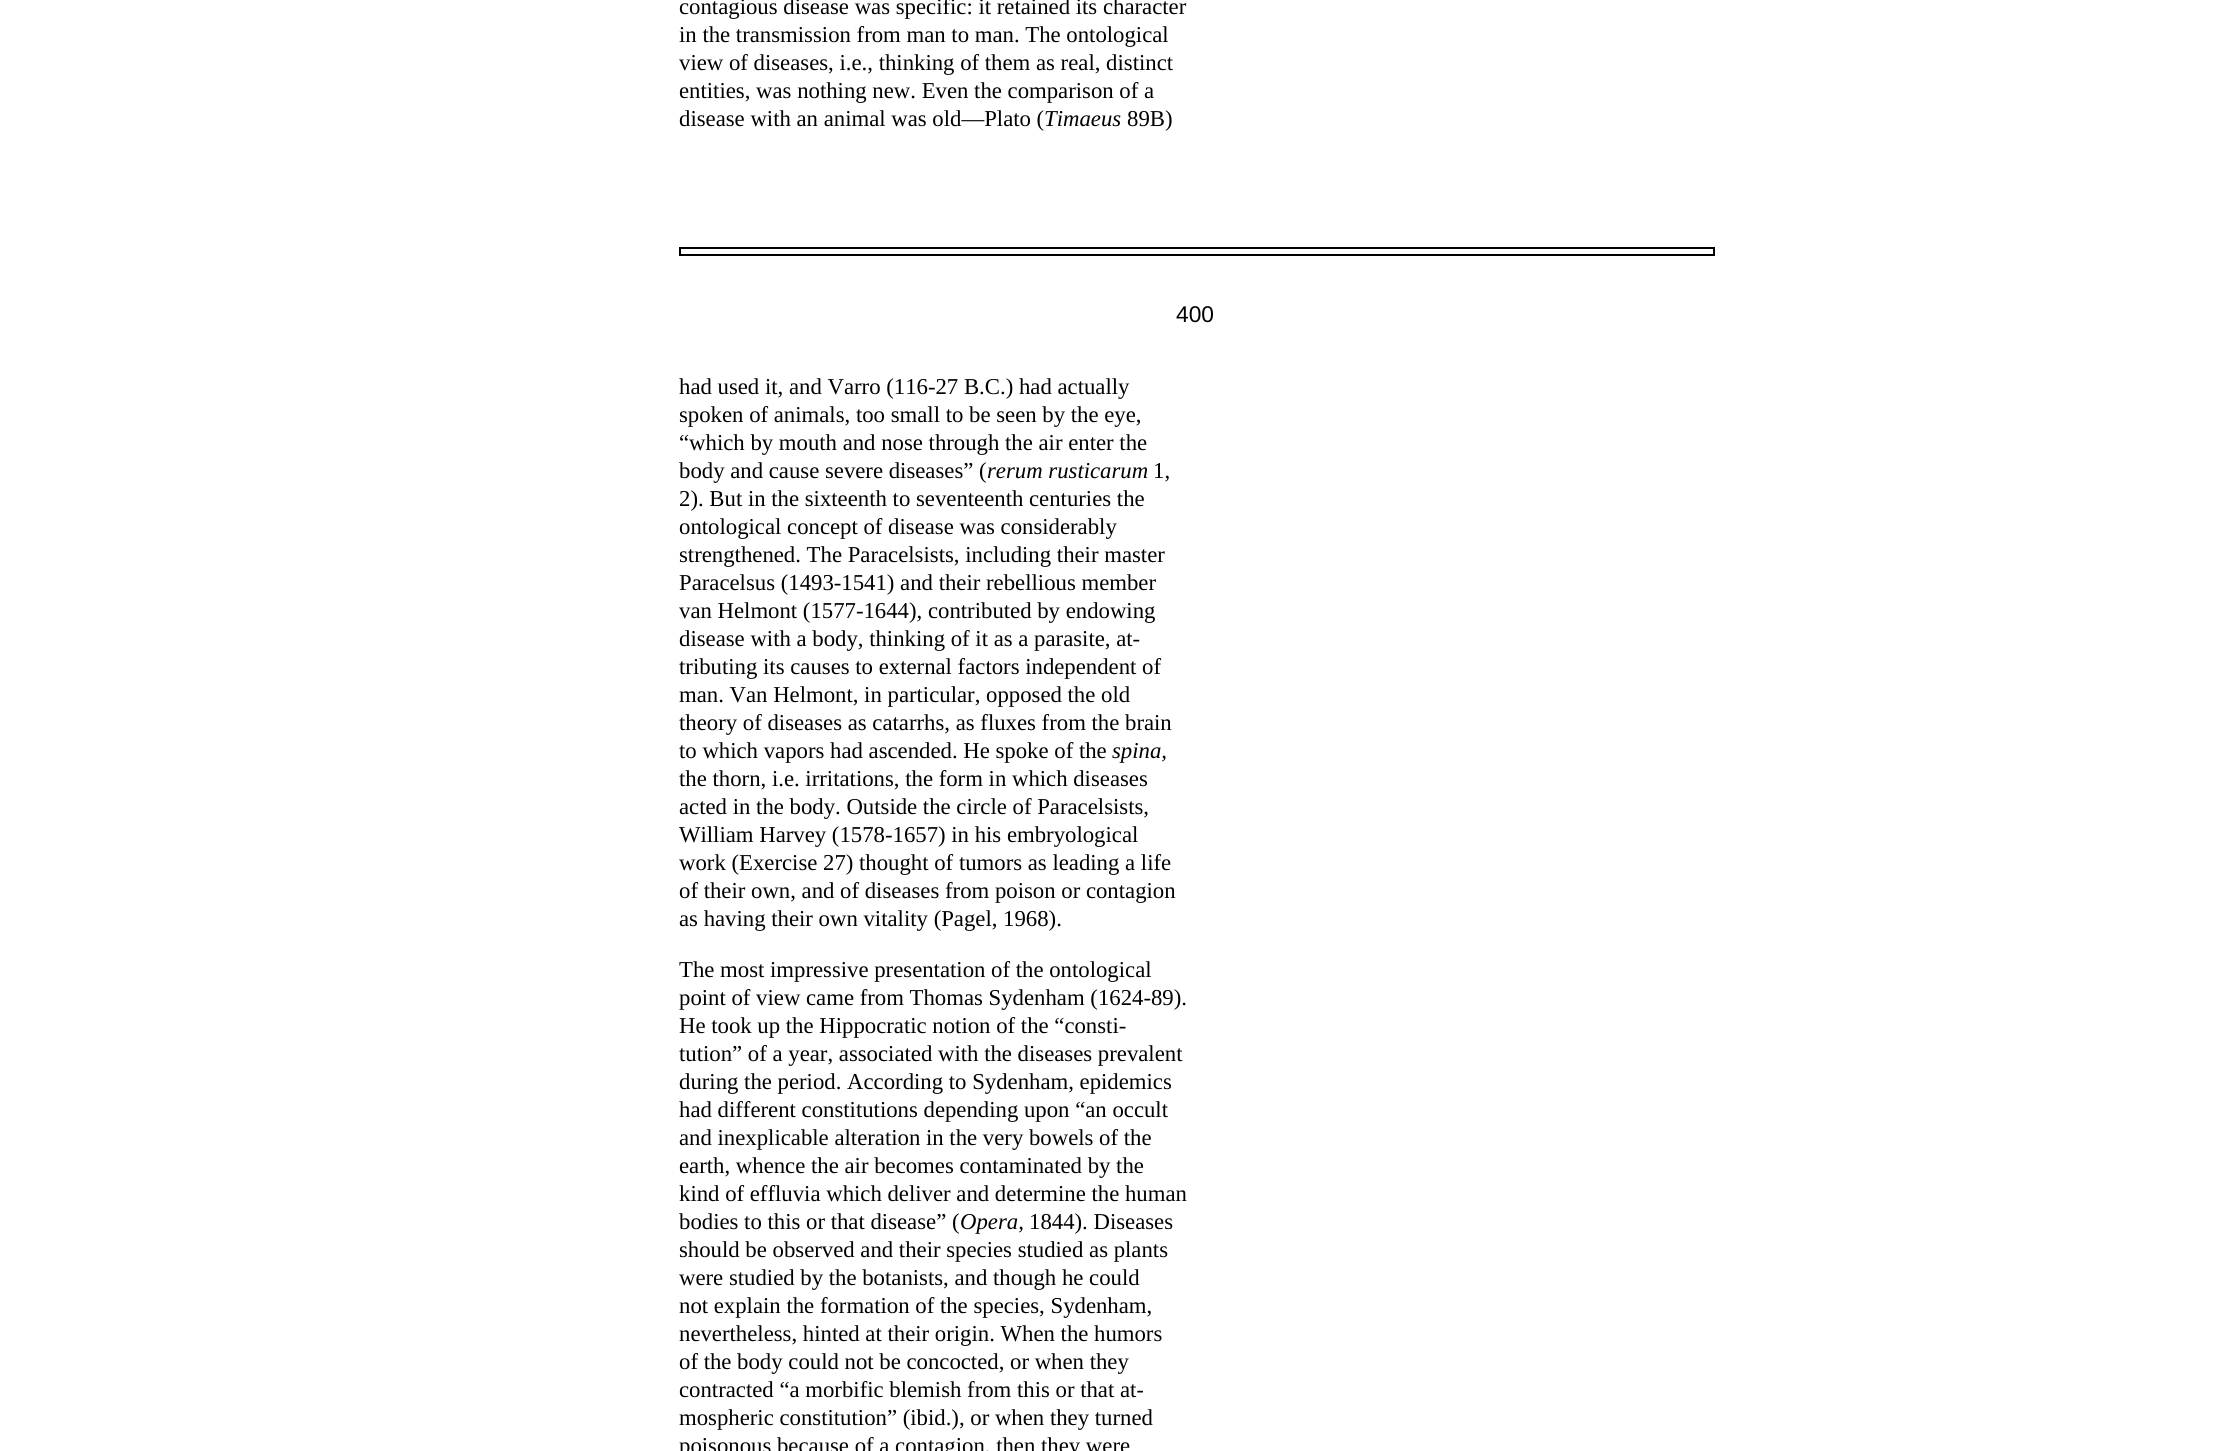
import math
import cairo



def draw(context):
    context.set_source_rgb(1, 1, 1)
    context.paint()
    context.rectangle(680, 248, 1034, 7)
    context.set_source_rgb(0, 0, 0)
    context.stroke()
    context.select_font_face("Liberation Serif")
    context.set_font_size(22.75)
    context.move_to(679, 14)
    context.show_text("contagious disease was specific: it retained its character")
    context.move_to(679, 42)
    context.show_text("in the transmission from man to man. The ontological")
    context.move_to(679, 70)
    context.show_text("view of diseases, i.e., thinking of them as real, distinct")
    context.move_to(679, 98)
    context.show_text("entities, was nothing new. Even the comparison of a")
    context.move_to(679, 126)
    context.show_text("disease with an animal was old—Plato (")
    context.select_font_face("Liberation Serif", cairo.FontSlant.ITALIC)
    context.move_to(1044, 126)
    context.show_text("Timaeus")
    context.select_font_face("Liberation Serif")
    context.move_to(1127, 126)
    context.show_text("89B)")
    context.select_font_face("Liberation Sans")
    context.move_to(1176, 322)
    context.show_text("400")
    context.select_font_face("Liberation Serif")
    context.move_to(679, 394)
    context.show_text("had used it, and Varro (116-27 B.C.) had actually")
    context.move_to(679, 422)
    context.show_text("spoken of animals, too small to be seen by the eye,")
    context.move_to(679, 450)
    context.show_text("“which by mouth and nose through the air enter the")
    context.move_to(679, 478)
    context.show_text("body and cause severe diseases” (")
    context.select_font_face("Liberation Serif", cairo.FontSlant.ITALIC)
    context.move_to(987, 478)
    context.show_text("rerum rusticarum")
    context.select_font_face("Liberation Serif")
    context.move_to(1153, 478)
    context.show_text("1,")
    context.move_to(679, 506)
    context.show_text("2). But in the sixteenth to seventeenth centuries the")
    context.move_to(679, 534)
    context.show_text("ontological concept of disease was considerably")
    context.move_to(679, 562)
    context.show_text("strengthened. The Paracelsists, including their master")
    context.move_to(679, 590)
    context.show_text("Paracelsus (1493-1541) and their rebellious member")
    context.move_to(679, 618)
    context.show_text("van Helmont (1577-1644), contributed by endowing")
    context.move_to(679, 646)
    context.show_text("disease with a body, thinking of it as a parasite, at-")
    context.move_to(679, 674)
    context.show_text("tributing its causes to external factors independent of")
    context.move_to(679, 702)
    context.show_text("man. Van Helmont, in particular, opposed the old")
    context.move_to(679, 730)
    context.show_text("theory of diseases as catarrhs, as fluxes from the brain")
    context.move_to(679, 758)
    context.show_text("to which vapors had ascended. He spoke of the")
    context.select_font_face("Liberation Serif", cairo.FontSlant.ITALIC)
    context.move_to(1112, 758)
    context.show_text("spina,")
    context.select_font_face("Liberation Serif")
    context.move_to(679, 786)
    context.show_text("the thorn, i.e. irritations, the form in which diseases")
    context.move_to(679, 814)
    context.show_text("acted in the body. Outside the circle of Paracelsists,")
    context.move_to(679, 842)
    context.show_text("William Harvey (1578-1657) in his embryological")
    context.move_to(679, 870)
    context.show_text("work (Exercise 27) thought of tumors as leading a life")
    context.move_to(679, 898)
    context.show_text("of their own, and of diseases from poison or contagion")
    context.move_to(679, 926)
    context.show_text("as having their own vitality (Pagel, 1968).")
    context.move_to(679, 977)
    context.show_text("The most impressive presentation of the ontological")
    context.move_to(679, 1005)
    context.show_text("point of view came from Thomas Sydenham (1624-89).")
    context.move_to(679, 1033)
    context.show_text("He took up the Hippocratic notion of the “consti-")
    context.move_to(679, 1061)
    context.show_text("tution” of a year, associated with the diseases prevalent")
    context.move_to(679, 1089)
    context.show_text("during the period. According to Sydenham, epidemics")
    context.move_to(679, 1117)
    context.show_text("had different constitutions depending upon “an occult")
    context.move_to(679, 1145)
    context.show_text("and inexplicable alteration in the very bowels of the")
    context.move_to(679, 1173)
    context.show_text("earth, whence the air becomes contaminated by the")
    context.move_to(679, 1201)
    context.show_text("kind of effluvia which deliver and determine the human")
    context.move_to(679, 1229)
    context.show_text("bodies to this or that disease” (")
    context.select_font_face("Liberation Serif", cairo.FontSlant.ITALIC)
    context.move_to(960, 1229)
    context.show_text("Opera,")
    context.select_font_face("Liberation Serif")
    context.move_to(1029, 1229)
    context.show_text("1844). Diseases")
    context.move_to(679, 1257)
    context.show_text("should be observed and their species studied as plants")
    context.move_to(679, 1285)
    context.show_text("were studied by the botanists, and though he could")
    context.move_to(679, 1313)
    context.show_text("not explain the formation of the species, Sydenham,")
    context.move_to(679, 1341)
    context.show_text("nevertheless, hinted at their origin. When the humors")
    context.move_to(679, 1369)
    context.show_text("of the body could not be concocted, or when they")
    context.move_to(679, 1397)
    context.show_text("contracted “a morbific blemish from this or that at-")
    context.move_to(679, 1425)
    context.show_text("mospheric constitution” (ibid.), or when they turned")
    context.move_to(679, 1453)
    context.show_text("poisonous because of a contagion, then they were")


surface = cairo.ImageSurface(cairo.Format.RGB24, 2229, 1451)
context = cairo.Context(surface)
options = cairo.FontOptions()
options.set_hint_metrics(cairo.HintMetrics.OFF)
options.set_hint_style(cairo.HintStyle.NONE)
context.set_font_options(options)
context.set_miter_limit(4)
draw(context)
surface.write_to_png("out.png")
